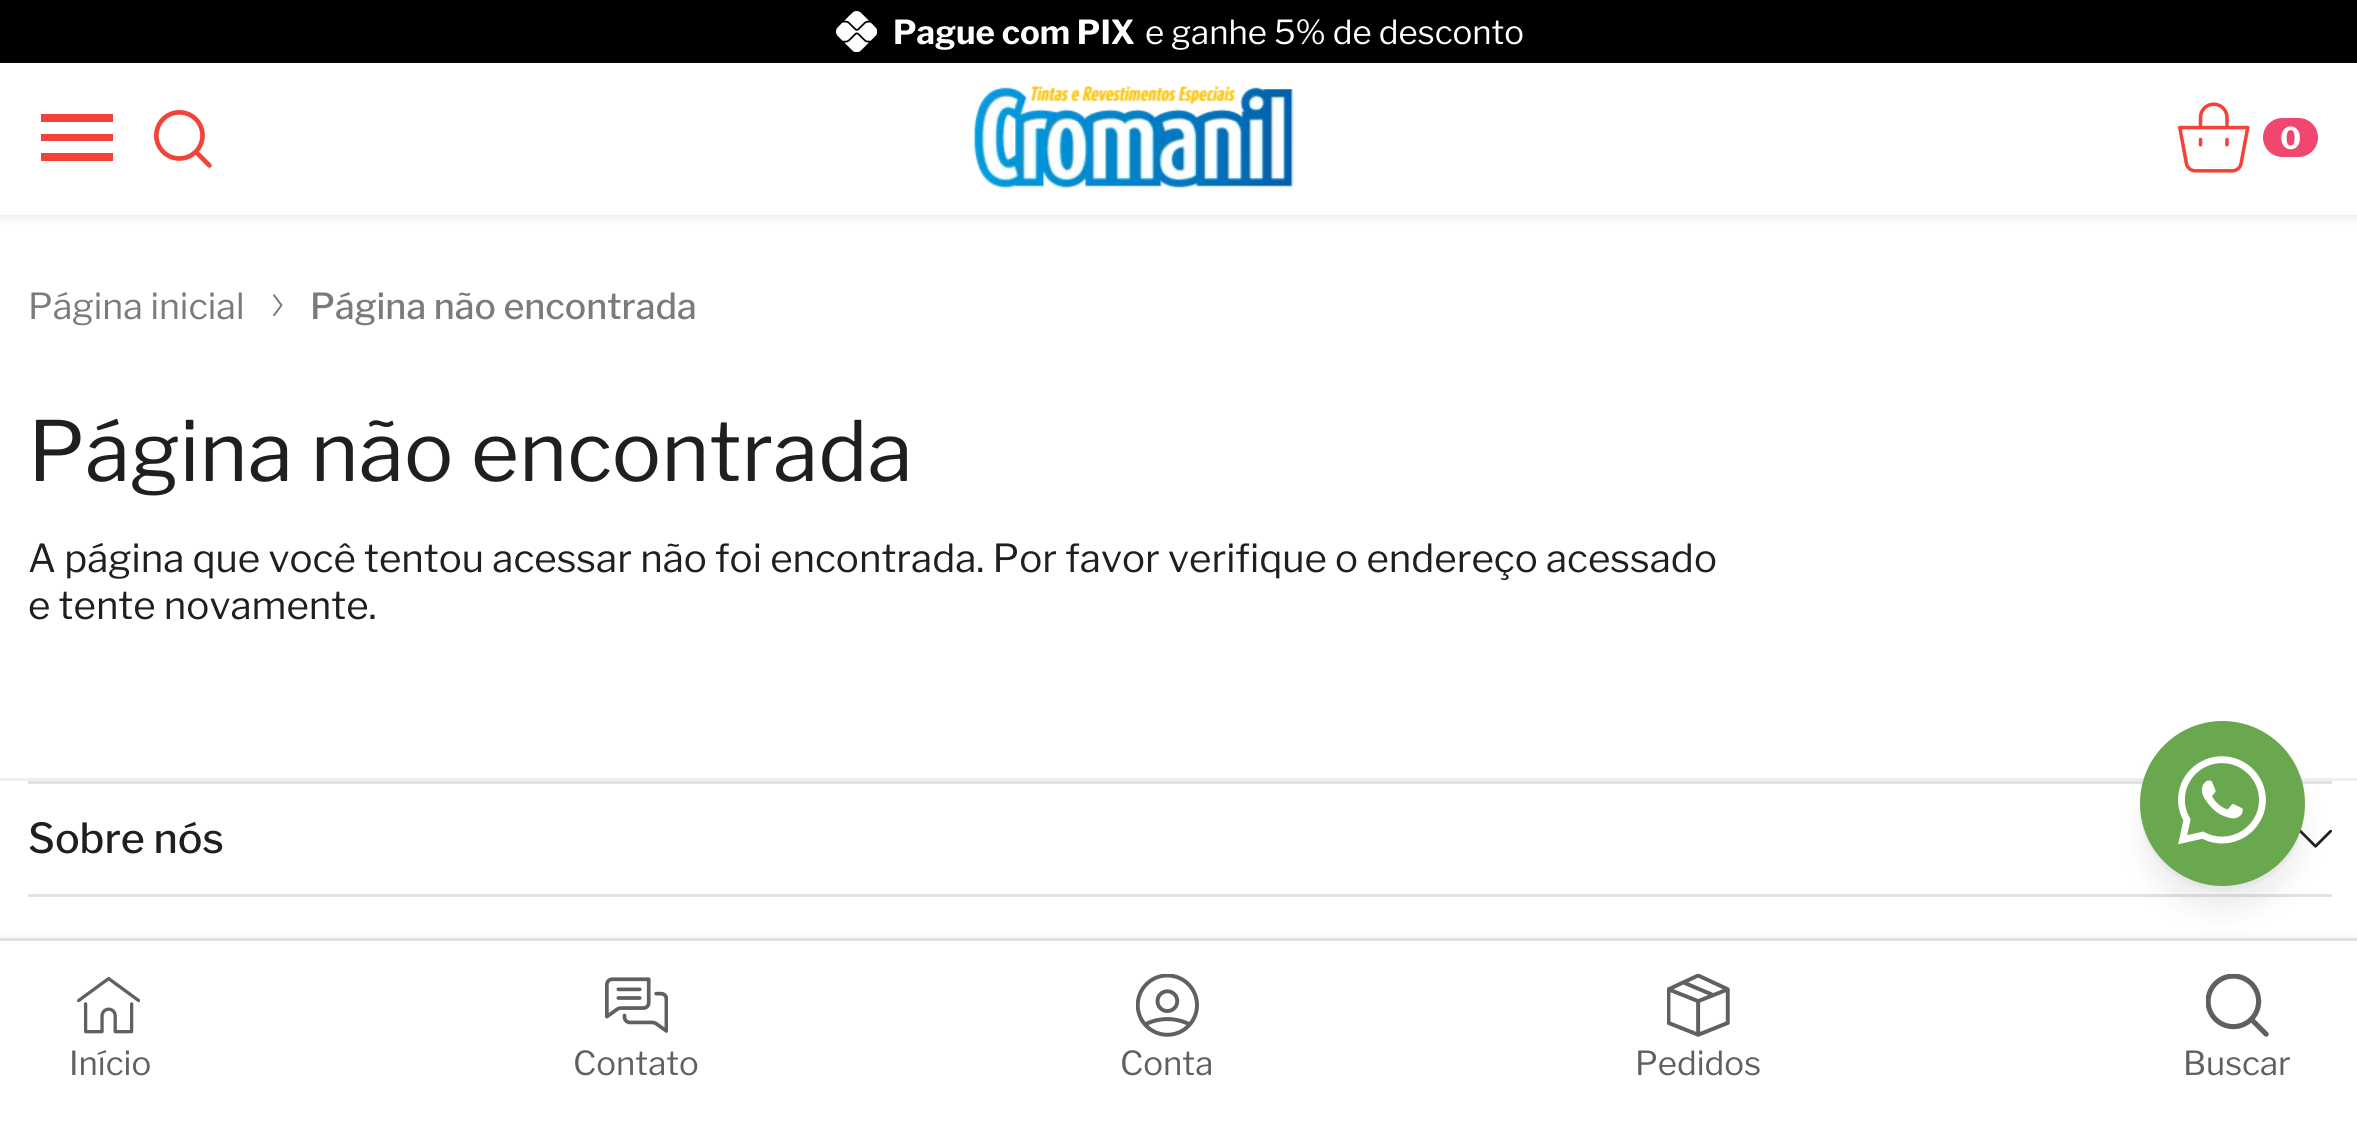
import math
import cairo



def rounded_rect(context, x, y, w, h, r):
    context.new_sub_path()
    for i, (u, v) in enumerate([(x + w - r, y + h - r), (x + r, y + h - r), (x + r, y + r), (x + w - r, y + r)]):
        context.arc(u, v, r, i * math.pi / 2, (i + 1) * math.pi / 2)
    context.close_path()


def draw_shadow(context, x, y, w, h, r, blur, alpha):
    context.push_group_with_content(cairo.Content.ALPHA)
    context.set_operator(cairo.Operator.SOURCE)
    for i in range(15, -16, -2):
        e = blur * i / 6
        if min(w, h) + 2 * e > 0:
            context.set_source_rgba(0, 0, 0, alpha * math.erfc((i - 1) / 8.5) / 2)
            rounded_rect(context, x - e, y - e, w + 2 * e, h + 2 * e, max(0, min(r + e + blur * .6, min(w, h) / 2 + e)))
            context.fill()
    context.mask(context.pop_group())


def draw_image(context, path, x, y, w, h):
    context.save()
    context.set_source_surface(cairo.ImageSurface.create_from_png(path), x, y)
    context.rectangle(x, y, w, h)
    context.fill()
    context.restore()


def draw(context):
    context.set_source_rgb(1, 1, 1)
    context.paint()
    context.set_source_rgb(0, 0, 0)
    context.rectangle(0, 0, 2357, 63)
    context.fill()
    draw_image(context, "images/1.png", 836, 11, 41, 41)
    context.set_source_rgb(82 / 255, 82 / 255, 82 / 255)
    draw_shadow(context, 0, 66, 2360, 151, 0, 5.5, 0.13)
    context.set_source_rgb(1, 1, 1)
    context.rectangle(0, 63, 2357, 149)
    context.fill()
    context.set_source_rgb(252 / 255, 252 / 255, 252 / 255)
    context.rectangle(0, 212, 2357, 3)
    context.fill()
    context.set_source_rgb(244 / 255, 67 / 255, 54 / 255)
    context.rectangle(41, 153, 72, 8)
    context.fill()
    context.rectangle(41, 134, 72, 7)
    context.fill()
    context.rectangle(41, 114, 72, 8)
    context.fill()
    draw_image(context, "images/2.png", 154, 110, 58, 58)
    draw_image(context, "images/3.png", 974, 86, 320, 103)
    draw_image(context, "images/4.png", 2178, 102, 72, 71)
    context.set_source_rgb(239 / 255, 71 / 255, 111 / 255)
    rounded_rect(context, 2263, 118, 55, 39, 19.5)
    context.fill()
    draw_image(context, "images/5.png", 273, 294, 10, 22)
    context.set_source_rgb(239 / 255, 239 / 255, 239 / 255)
    context.rectangle(0, 778, 2357, 3)
    context.fill()
    context.set_source_rgb(226 / 255, 226 / 255, 226 / 255)
    context.rectangle(28, 781, 2304, 3)
    context.fill()
    draw_image(context, "images/6.png", 2299, 829, 33, 19)
    context.rectangle(28, 894, 2304, 3)
    context.fill()
    context.set_source_rgb(103 / 255, 103 / 255, 103 / 255)
    draw_shadow(context, 2140, 748, 165, 165, 82.5, 11, 0.1)
    context.set_source_rgb(0, 0, 0)
    draw_shadow(context, 2140, 726, 165, 165, 82.5, 1.5, 0.04)
    context.set_source_rgb(106 / 255, 168 / 255, 79 / 255)
    context.arc(2222.5, 803.5, 82.5, 0, 2 * math.pi)
    context.fill()
    draw_image(context, "images/7.png", 2178, 756, 88, 88)
    context.set_source_rgb(82 / 255, 82 / 255, 82 / 255)
    draw_shadow(context, 0, 938, 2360, 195, 0, 5.5, 0.08)
    context.set_source_rgb(1, 1, 1)
    context.rectangle(0, 941, 2357, 190)
    context.fill()
    context.set_source_rgb(226 / 255, 226 / 255, 226 / 255)
    context.rectangle(0, 938, 2357, 3)
    context.fill()
    draw_image(context, "images/8.png", 77, 976, 63, 58)
    draw_image(context, "images/9.png", 605, 977, 63, 56)
    draw_image(context, "images/10.png", 1136, 974, 63, 63)
    draw_image(context, "images/11.png", 1667, 974, 63, 63)
    draw_image(context, "images/12.png", 2206, 974, 63, 63)
    context.select_font_face("Libre Franklin", cairo.FontSlant.NORMAL, cairo.FontWeight.BOLD)
    context.set_font_size(33)
    context.set_source_rgb(1, 1, 1)
    context.move_to(893, 44)
    context.show_text("Pague com PIX")
    context.select_font_face("Libre Franklin")
    context.move_to(1145, 44)
    context.show_text("e ganhe 5% de desconto")
    context.select_font_face("Libre Franklin", cairo.FontSlant.NORMAL, cairo.FontWeight.BOLD)
    context.set_font_size(30)
    context.move_to(2280, 149)
    context.show_text("0")
    context.select_font_face("Libre Franklin")
    context.set_font_size(35.75)
    context.set_source_rgb(123 / 255, 123 / 255, 123 / 255)
    context.move_to(28, 319)
    context.show_text("Página inicial")
    context.select_font_face("Libre Franklin Medium")
    context.move_to(310, 319)
    context.show_text("Página não encontrada")
    context.select_font_face("Libre Franklin")
    context.set_font_size(82.5)
    context.set_source_rgb(32 / 255, 31 / 255, 31 / 255)
    context.move_to(28, 481)
    context.show_text("Página não encontrada")
    context.set_font_size(38.5)
    context.move_to(28, 572)
    context.show_text("A página que você tentou acessar não foi encontrada. Por favor verifique o endereço acessado")
    context.move_to(28, 619)
    context.show_text("e tente novamente.")
    context.select_font_face("Libre Franklin Medium")
    context.set_font_size(41.25)
    context.move_to(28, 853)
    context.show_text("Sobre nós")
    context.select_font_face("Libre Franklin")
    context.set_font_size(33)
    context.set_source_rgb(96 / 255, 96 / 255, 96 / 255)
    context.move_to(69, 1075)
    context.show_text("Início")
    context.move_to(573, 1075)
    context.show_text("Contato")
    context.move_to(1120, 1075)
    context.show_text("Conta")
    context.move_to(1635, 1075)
    context.show_text("Pedidos")
    context.move_to(2183, 1075)
    context.show_text("Buscar")


surface = cairo.ImageSurface(cairo.Format.RGB24, 2357, 1131)
context = cairo.Context(surface)
options = cairo.FontOptions()
options.set_hint_metrics(cairo.HintMetrics.OFF)
options.set_hint_style(cairo.HintStyle.NONE)
context.set_font_options(options)
context.set_miter_limit(4)
draw(context)
surface.write_to_png("out.png")
